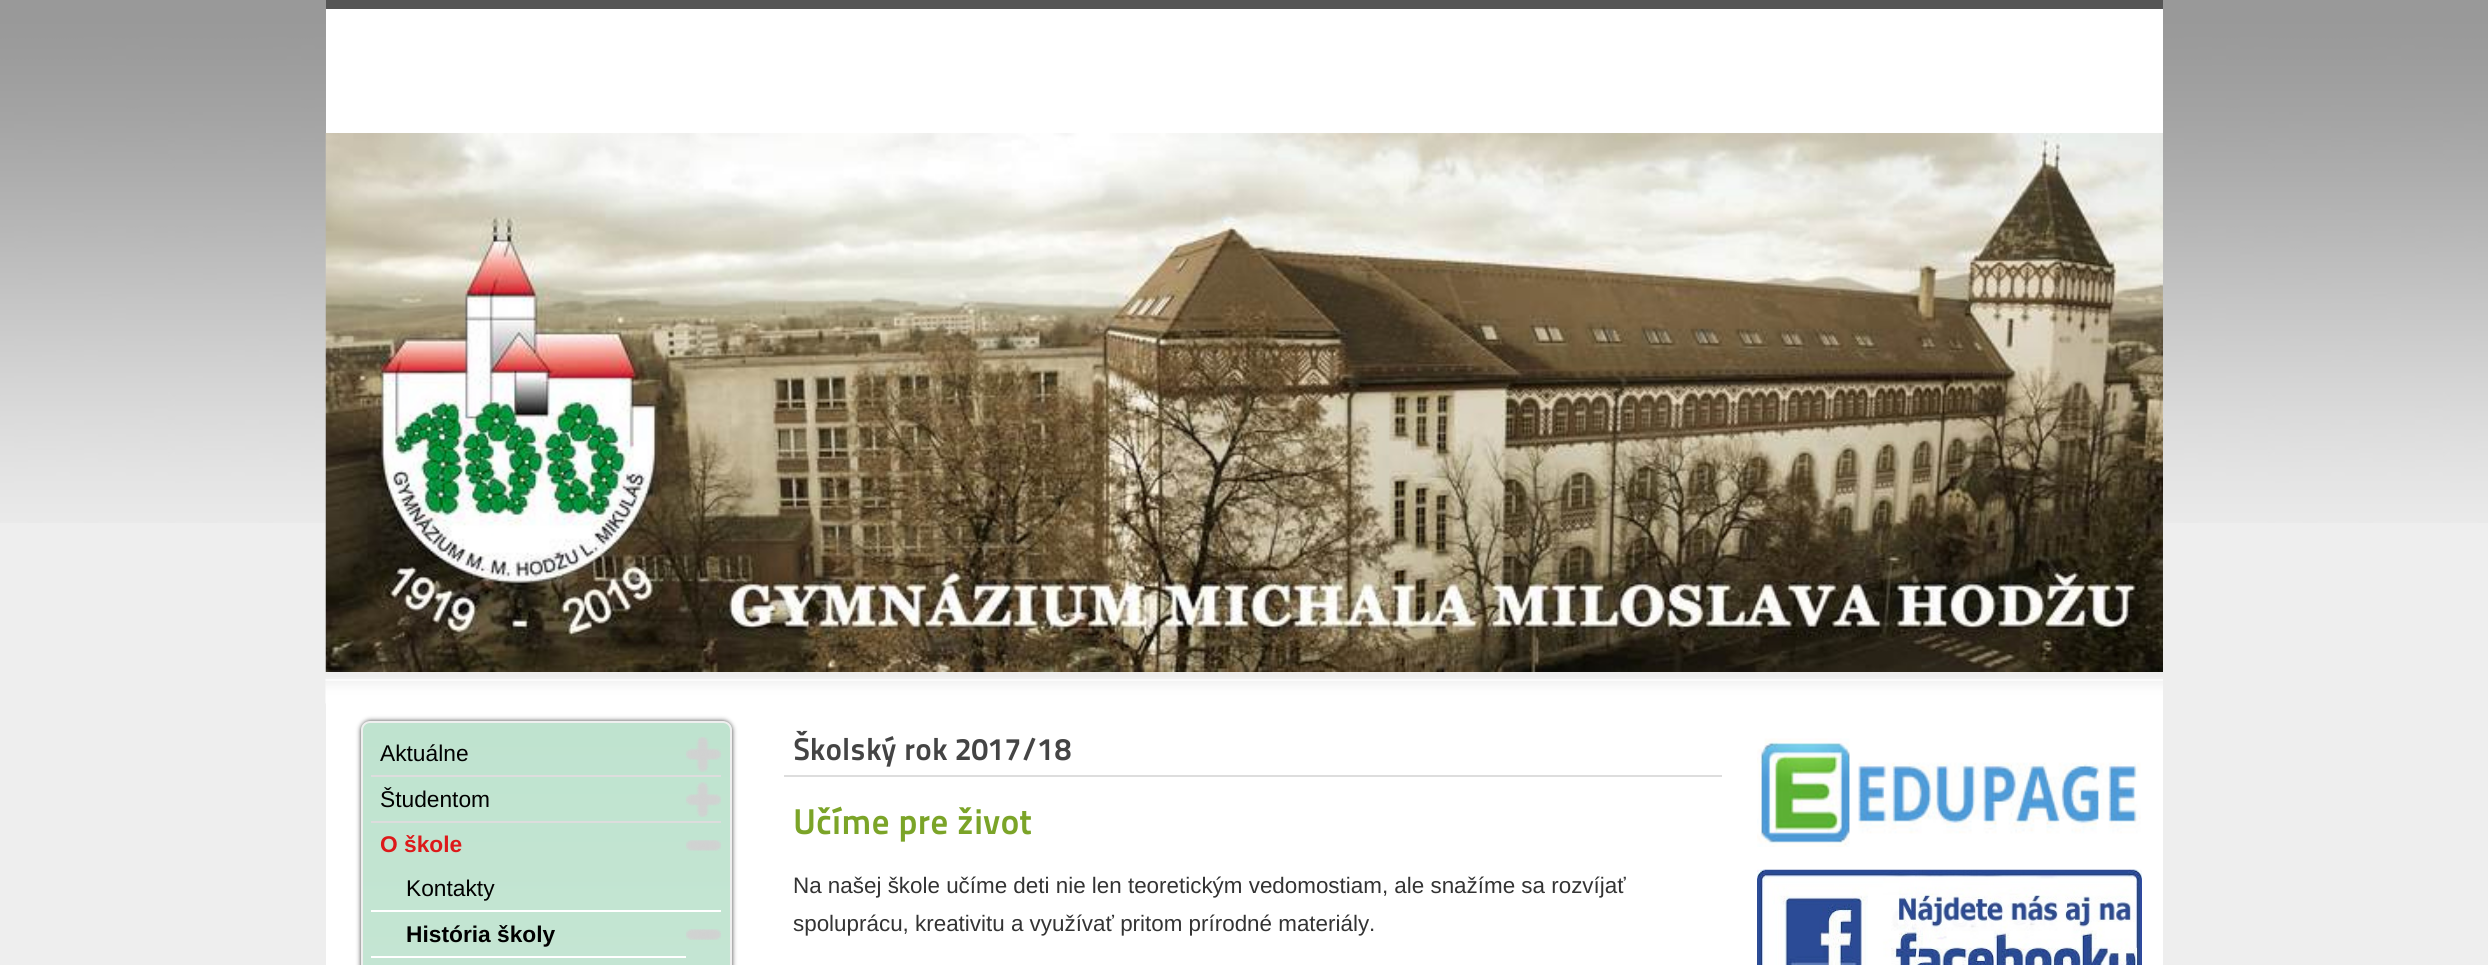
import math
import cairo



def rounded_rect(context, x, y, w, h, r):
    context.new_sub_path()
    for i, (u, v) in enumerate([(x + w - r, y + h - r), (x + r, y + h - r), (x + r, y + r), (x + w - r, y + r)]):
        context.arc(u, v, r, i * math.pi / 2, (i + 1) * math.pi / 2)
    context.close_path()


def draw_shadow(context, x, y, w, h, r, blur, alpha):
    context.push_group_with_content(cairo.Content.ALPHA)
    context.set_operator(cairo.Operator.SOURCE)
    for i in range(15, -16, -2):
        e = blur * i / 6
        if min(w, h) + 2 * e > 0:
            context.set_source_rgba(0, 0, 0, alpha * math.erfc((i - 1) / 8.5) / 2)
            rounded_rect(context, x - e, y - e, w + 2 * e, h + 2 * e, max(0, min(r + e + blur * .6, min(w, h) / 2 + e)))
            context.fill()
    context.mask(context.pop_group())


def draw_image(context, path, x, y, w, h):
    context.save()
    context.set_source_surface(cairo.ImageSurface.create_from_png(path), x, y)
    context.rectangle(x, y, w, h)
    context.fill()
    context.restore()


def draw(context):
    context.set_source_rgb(238 / 255, 238 / 255, 238 / 255)
    context.paint()
    draw_image(context, "images/1.png", 0, 0, 2488, 523)
    context.set_source_rgb(1, 1, 1)
    context.rectangle(326, 9, 1837, 124)
    context.fill()
    context.set_source_rgb(85 / 255, 85 / 255, 85 / 255)
    context.rectangle(326, 0, 1837, 9)
    context.fill()
    draw_image(context, "images/2.png", 325, 133, 1838, 539)
    context.set_source_rgb(1, 1, 1)
    context.rectangle(326, 677, 1837, 288)
    context.fill()
    draw_image(context, "images/3.png", 325, 677, 1838, 27)
    context.set_source_rgb(68 / 255, 68 / 255, 68 / 255)
    draw_shadow(context, 361, 721, 371, 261, 9, 2.5, 1)
    context.save()
    rounded_rect(context, 361, 721, 371, 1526, 9)
    context.clip()
    gradient = cairo.LinearGradient(546, 723, 546, 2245)
    gradient.add_color_stop_rgba(0, 191 / 255, 227 / 255, 207 / 255, 1)
    gradient.add_color_stop_rgba(1, 223 / 255, 241 / 255, 231 / 255, 1)
    context.set_source(gradient)
    context.rectangle(361, 723, 371, 242)
    context.fill()
    context.restore()
    rounded_rect(context, 362, 722, 369, 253, 8)
    context.set_source_rgb(239 / 255, 239 / 255, 239 / 255)
    context.stroke()
    context.set_source_rgb(221 / 255, 221 / 255, 221 / 255)
    context.rectangle(371, 775, 350, 2)
    context.fill()
    draw_image(context, "images/4.png", 686, 737, 35, 35)
    context.rectangle(371, 821, 350, 2)
    context.fill()
    draw_image(context, "images/5.png", 686, 782, 35, 35)
    draw_image(context, "images/6.png", 686, 840, 35, 11)
    context.set_source_rgb(1, 1, 1)
    context.rectangle(371, 910, 350, 2)
    context.fill()
    context.rectangle(371, 956, 315, 2)
    context.fill()
    draw_image(context, "images/7.png", 686, 929, 35, 11)
    context.set_source_rgb(221 / 255, 221 / 255, 221 / 255)
    context.rectangle(784, 775, 938, 2)
    context.fill()
    draw_image(context, "images/8.png", 1757, 738, 384, 109)
    draw_image(context, "images/9.png", 1757, 869, 385, 96)
    context.select_font_face("Liberation Sans")
    context.set_font_size(22.75)
    context.set_source_rgb(0, 0, 0)
    context.move_to(380, 761)
    context.show_text("Aktuálne")
    context.move_to(380, 807)
    context.show_text("Študentom")
    context.select_font_face("Liberation Sans", cairo.FontSlant.NORMAL, cairo.FontWeight.BOLD)
    context.set_source_rgb(221 / 255, 25 / 255, 26 / 255)
    context.move_to(380, 852)
    context.show_text("O škole")
    context.select_font_face("Liberation Sans")
    context.set_source_rgb(0, 0, 0)
    context.move_to(406, 896)
    context.show_text("Kontakty")
    context.select_font_face("Liberation Sans", cairo.FontSlant.NORMAL, cairo.FontWeight.BOLD)
    context.move_to(406, 942)
    context.show_text("História školy")
    context.select_font_face("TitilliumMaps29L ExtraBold")
    context.set_font_size(31.25)
    context.set_source_rgb(68 / 255, 68 / 255, 68 / 255)
    context.move_to(793, 760)
    context.show_text("Školský rok 2017/18")
    context.set_font_size(35.75)
    context.set_source_rgb(123 / 255, 164 / 255, 40 / 255)
    context.move_to(793, 834)
    context.show_text("Učíme pre život")
    context.select_font_face("Liberation Sans")
    context.set_font_size(22.4)
    context.set_source_rgb(51 / 255, 51 / 255, 51 / 255)
    context.move_to(793, 893)
    context.show_text("Na našej škole učíme deti nie len teoretickým vedomostiam, ale snažíme sa rozvíjať")
    context.move_to(793, 931)
    context.show_text("spoluprácu, kreativitu a využívať pritom prírodné materiály.")


surface = cairo.ImageSurface(cairo.Format.RGB24, 2488, 965)
context = cairo.Context(surface)
options = cairo.FontOptions()
options.set_hint_metrics(cairo.HintMetrics.OFF)
options.set_hint_style(cairo.HintStyle.NONE)
context.set_font_options(options)
context.set_miter_limit(4)
draw(context)
surface.write_to_png("out.png")
